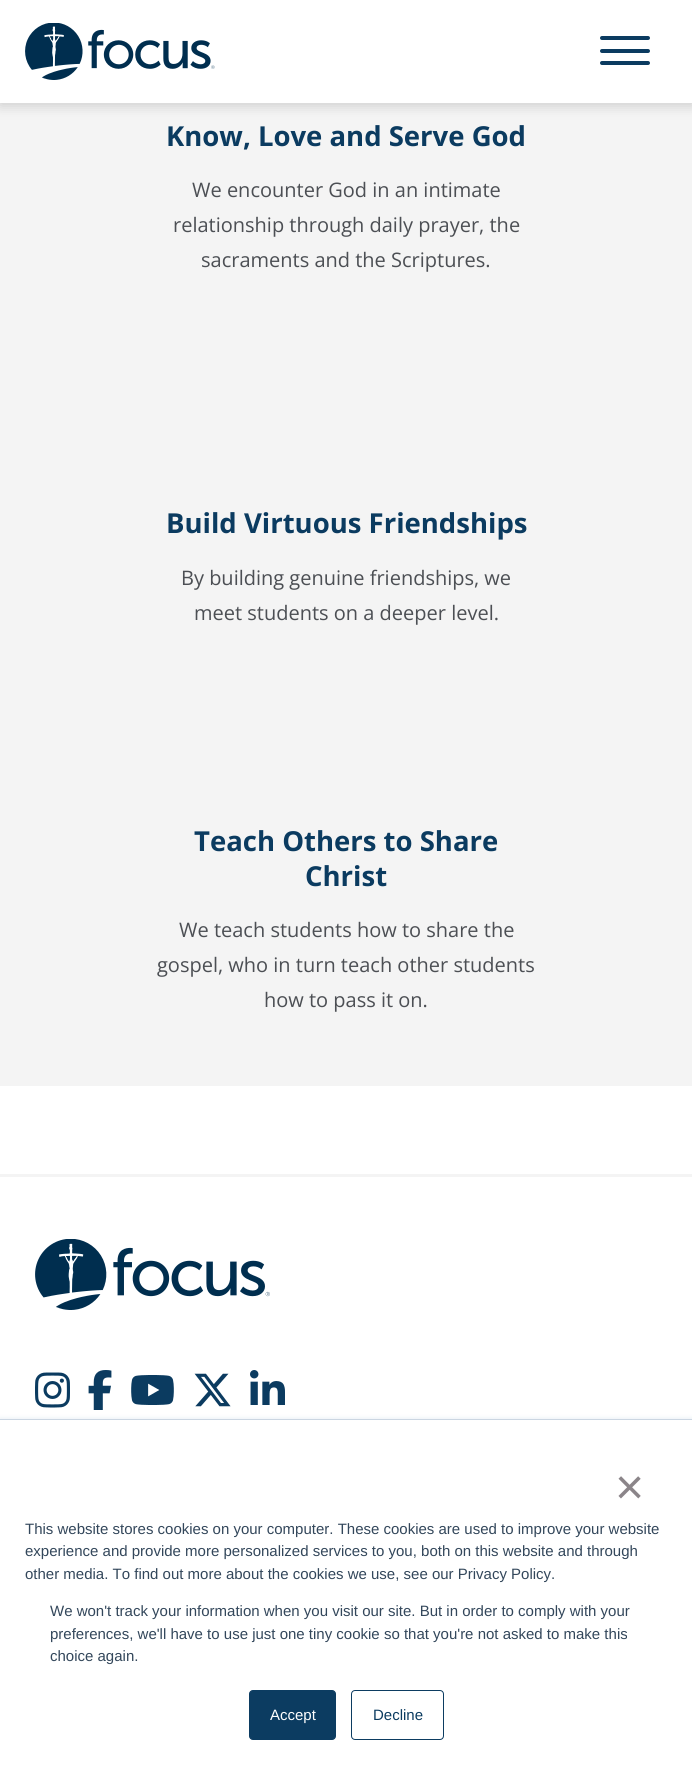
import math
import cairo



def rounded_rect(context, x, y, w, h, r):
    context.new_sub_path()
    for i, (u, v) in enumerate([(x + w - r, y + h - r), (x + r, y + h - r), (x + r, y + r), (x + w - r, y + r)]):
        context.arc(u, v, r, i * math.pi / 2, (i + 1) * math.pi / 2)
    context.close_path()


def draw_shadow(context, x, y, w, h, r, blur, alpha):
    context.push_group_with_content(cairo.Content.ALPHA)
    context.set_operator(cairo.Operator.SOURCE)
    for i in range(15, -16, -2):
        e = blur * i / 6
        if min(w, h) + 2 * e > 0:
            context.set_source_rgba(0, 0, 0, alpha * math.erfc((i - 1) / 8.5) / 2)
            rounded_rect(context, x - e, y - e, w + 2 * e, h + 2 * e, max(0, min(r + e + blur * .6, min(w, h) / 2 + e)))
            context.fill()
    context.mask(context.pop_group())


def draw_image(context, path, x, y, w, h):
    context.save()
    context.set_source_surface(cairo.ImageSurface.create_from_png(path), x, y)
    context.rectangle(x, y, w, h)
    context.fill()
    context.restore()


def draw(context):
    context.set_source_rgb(1, 1, 1)
    context.paint()
    context.set_source_rgb(244 / 255, 244 / 255, 244 / 255)
    context.rectangle(0, 103, 692, 983)
    context.fill()
    context.set_source_rgb(0, 0, 0)
    draw_shadow(context, 0, 4, 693, 102, 0, 6, 0.16)
    context.set_source_rgb(1, 1, 1)
    context.rectangle(0, 0, 692, 103)
    context.fill()
    draw_image(context, "images/1.png", 25, 23, 190, 57)
    context.set_source_rgb(11 / 255, 59 / 255, 96 / 255)
    rounded_rect(context, 600, 36, 50, 4, 2)
    context.fill()
    rounded_rect(context, 600, 49, 50, 4, 2)
    context.fill()
    rounded_rect(context, 600, 61, 50, 4, 2)
    context.fill()
    context.set_source_rgb(244 / 255, 244 / 255, 244 / 255)
    context.rectangle(0, 1174, 692, 3)
    context.fill()
    draw_image(context, "images/2.png", 35, 1239, 235, 71)
    draw_image(context, "images/3.png", 35, 1372, 35, 36)
    draw_image(context, "images/4.png", 88, 1370, 24, 40)
    draw_image(context, "images/5.png", 131, 1375, 43, 30)
    draw_image(context, "images/6.png", 194, 1373, 37, 34)
    draw_image(context, "images/7.png", 250, 1370, 35, 35)
    context.set_source_rgb(234 / 255, 240 / 255, 246 / 255)
    draw_shadow(context, 0, 1418, 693, 353, 0, 2, 1)
    context.set_source_rgb(1, 1, 1)
    context.rectangle(0, 1420, 692, 352)
    context.fill()
    context.set_source_rgb(203 / 255, 214 / 255, 226 / 255)
    context.rectangle(0, 1419, 692, 1)
    context.fill()
    context.set_source_rgb(12 / 255, 60 / 255, 97 / 255)
    rounded_rect(context, 249.5, 1690.5, 86, 49, 3.5)
    context.fill_preserve()
    context.set_line_width(1)
    context.stroke()
    rounded_rect(context, 351.5, 1690.5, 92, 49, 3.5)
    context.stroke()
    context.select_font_face("Open Sans", cairo.FontSlant.NORMAL, cairo.FontWeight.BOLD)
    context.set_font_size(27.5)
    context.set_source_rgb(11 / 255, 59 / 255, 96 / 255)
    context.move_to(166, 146)
    context.show_text("Know, Love and Serve God")
    context.select_font_face("Open Sans")
    context.set_font_size(20)
    context.set_source_rgb(76 / 255, 79 / 255, 84 / 255)
    context.move_to(192, 197)
    context.show_text("We encounter God in an intimate")
    context.move_to(173, 232)
    context.show_text("relationship through daily prayer, the")
    context.move_to(201, 267)
    context.show_text("sacraments and the Scriptures.")
    context.select_font_face("Open Sans", cairo.FontSlant.NORMAL, cairo.FontWeight.BOLD)
    context.set_font_size(27.5)
    context.set_source_rgb(11 / 255, 59 / 255, 96 / 255)
    context.move_to(166, 533)
    context.show_text("Build Virtuous Friendships")
    context.select_font_face("Open Sans")
    context.set_font_size(20)
    context.set_source_rgb(76 / 255, 79 / 255, 84 / 255)
    context.move_to(181, 585)
    context.show_text("By building genuine friendships, we")
    context.move_to(194, 620)
    context.show_text("meet students on a deeper level.")
    context.select_font_face("Open Sans", cairo.FontSlant.NORMAL, cairo.FontWeight.BOLD)
    context.set_font_size(27.5)
    context.set_source_rgb(11 / 255, 59 / 255, 96 / 255)
    context.move_to(194, 851)
    context.show_text("Teach Others to Share")
    context.move_to(305, 886)
    context.show_text("Christ")
    context.select_font_face("Open Sans")
    context.set_font_size(20)
    context.set_source_rgb(76 / 255, 79 / 255, 84 / 255)
    context.move_to(179, 937)
    context.show_text("We teach students how to share the")
    context.move_to(157, 972)
    context.show_text("gospel, who in turn teach other students")
    context.move_to(264, 1007)
    context.show_text("how to pass it on.")
    context.select_font_face("Liberation Sans")
    context.set_font_size(50)
    context.set_source_rgb(139 / 255, 133 / 255, 137 / 255)
    context.move_to(615, 1504)
    context.show_text("×")
    context.set_font_size(15)
    context.set_source_rgb(51 / 255, 71 / 255, 91 / 255)
    context.move_to(25, 1534)
    context.show_text("This website stores cookies on your computer. These cookies are used to improve your website")
    context.move_to(25, 1556)
    context.show_text("experience and provide more personalized services to you, both on this website and through")
    context.move_to(25, 1579)
    context.show_text("other media. To find out more about the cookies we use, see our Privacy Policy.")
    context.move_to(50, 1616)
    context.show_text("We won't track your information when you visit our site. But in order to comply with your")
    context.move_to(50, 1639)
    context.show_text("preferences, we'll have to use just one tiny cookie so that you're not asked to make this")
    context.move_to(50, 1661)
    context.show_text("choice again.")
    context.set_source_rgb(1, 1, 1)
    context.move_to(270, 1720)
    context.show_text("Accept")
    context.set_source_rgb(11 / 255, 59 / 255, 96 / 255)
    context.move_to(373, 1720)
    context.show_text("Decline")


surface = cairo.ImageSurface(cairo.Format.RGB24, 692, 1772)
context = cairo.Context(surface)
options = cairo.FontOptions()
options.set_hint_metrics(cairo.HintMetrics.OFF)
options.set_hint_style(cairo.HintStyle.NONE)
context.set_font_options(options)
context.set_miter_limit(4)
draw(context)
surface.write_to_png("out.png")
